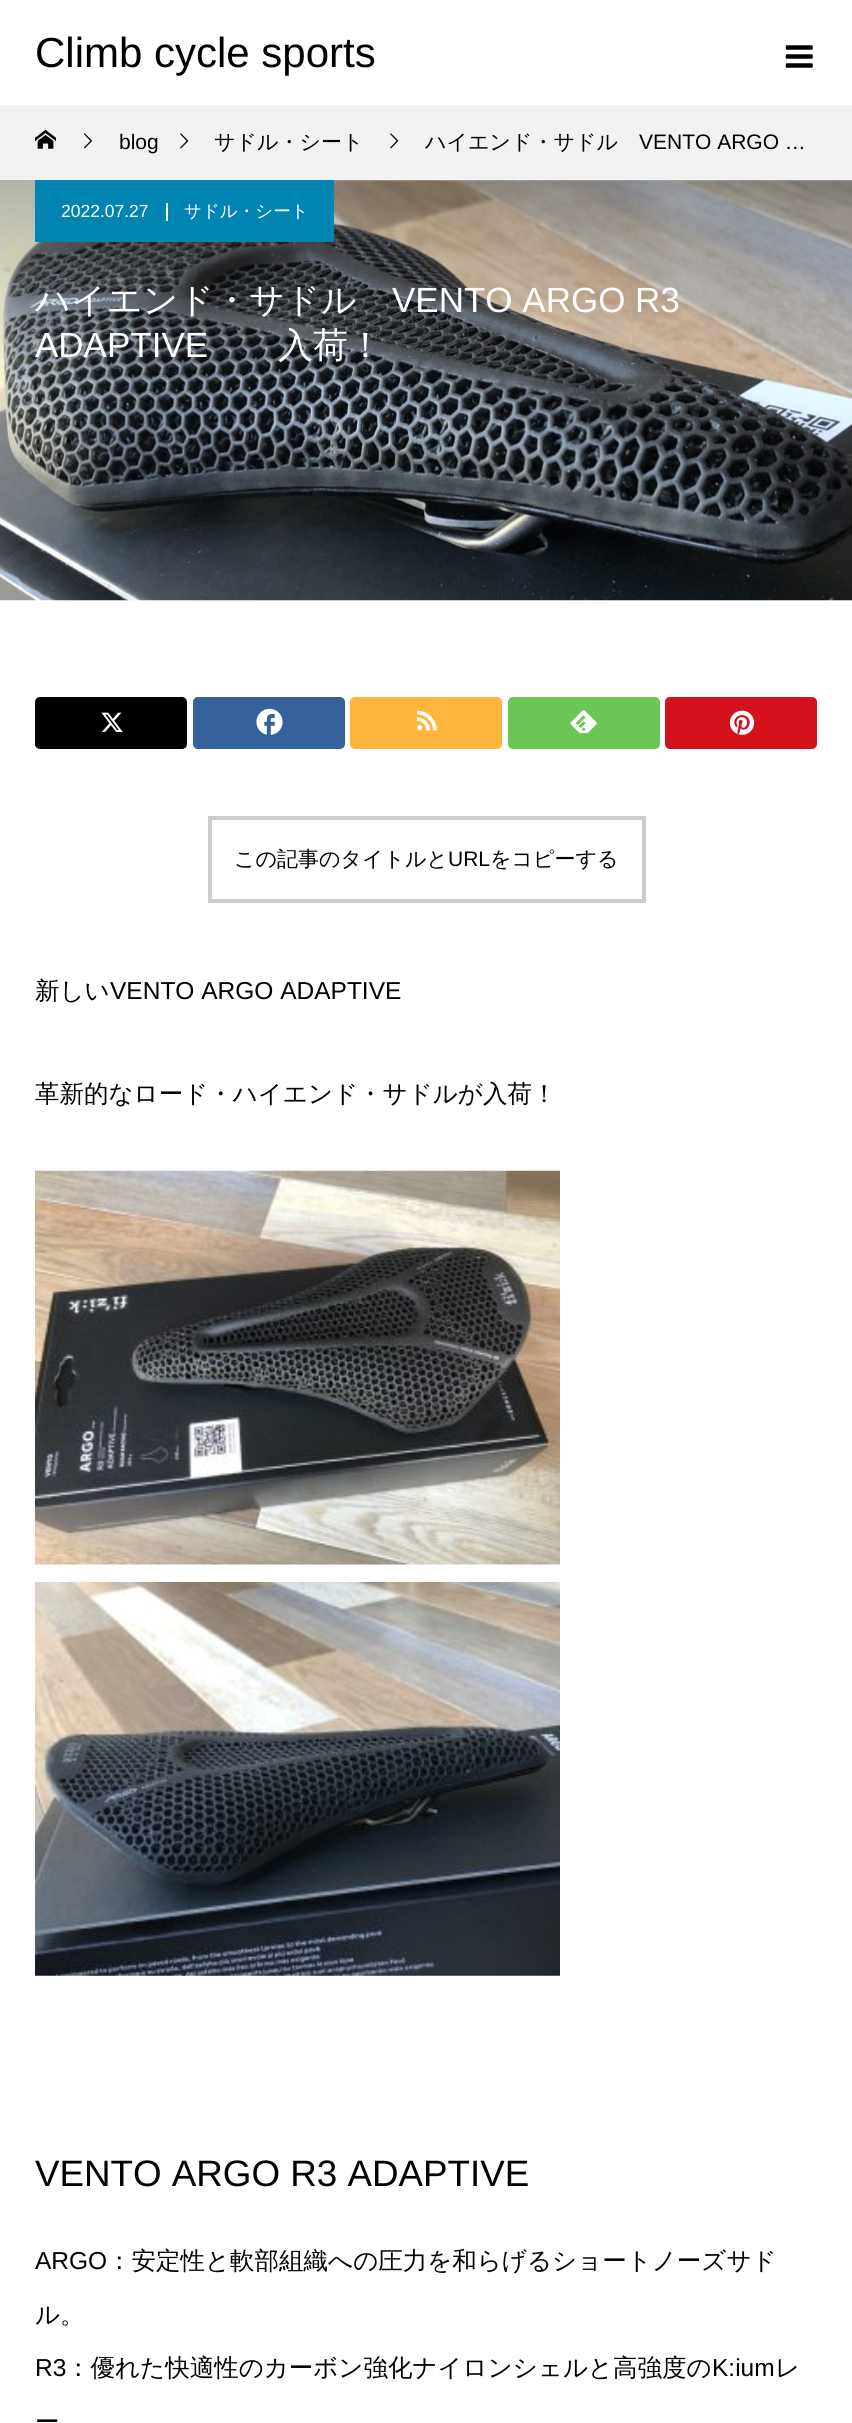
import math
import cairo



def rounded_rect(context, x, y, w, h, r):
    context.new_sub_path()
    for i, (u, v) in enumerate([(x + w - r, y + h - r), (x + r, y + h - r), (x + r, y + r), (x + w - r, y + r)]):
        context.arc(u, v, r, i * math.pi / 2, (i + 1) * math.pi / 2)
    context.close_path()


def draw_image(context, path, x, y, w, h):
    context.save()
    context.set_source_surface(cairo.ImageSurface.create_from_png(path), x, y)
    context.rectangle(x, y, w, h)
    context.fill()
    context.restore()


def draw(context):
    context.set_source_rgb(1, 1, 1)
    context.paint()
    draw_image(context, "images/1.png", 785, 45, 28, 23)
    context.set_source_rgb(242 / 255, 242 / 255, 242 / 255)
    context.rectangle(0, 105, 852, 75)
    context.fill()
    draw_image(context, "images/2.png", 35, 129, 21, 20)
    draw_image(context, "images/3.png", 84, 133, 8, 16)
    draw_image(context, "images/4.png", 180, 133, 9, 16)
    draw_image(context, "images/4.png", 390, 133, 9, 16)
    draw_image(context, "images/5.png", 0, 180, 852, 421)
    gradient = cairo.LinearGradient(426, 180, 426, 390)
    gradient.add_color_stop_rgba(0, 0, 0, 0, 0.3)
    gradient.add_color_stop_rgba(1, 0, 0, 0, 0)
    context.set_source(gradient)
    context.rectangle(0, 180, 852, 195)
    context.fill()
    context.set_source_rgb(0, 133 / 255, 178 / 255)
    context.rectangle(35, 180, 299, 62)
    context.fill()
    context.set_source_rgb(1, 1, 1)
    context.rectangle(166, 203, 2, 18)
    context.fill()
    context.set_source_rgb(0, 0, 0)
    rounded_rect(context, 35, 697, 152, 52, 5)
    context.fill()
    draw_image(context, "images/6.png", 101, 712, 22, 20)
    context.set_source_rgb(53 / 255, 98 / 255, 154 / 255)
    rounded_rect(context, 193, 697, 152, 52, 5)
    context.fill()
    draw_image(context, "images/7.png", 256, 708, 27, 27)
    context.set_source_rgb(1, 181 / 255, 60 / 255)
    rounded_rect(context, 350, 697, 152, 52, 5)
    context.fill()
    draw_image(context, "images/8.png", 417, 710, 20, 21)
    context.set_source_rgb(108 / 255, 198 / 255, 85 / 255)
    rounded_rect(context, 508, 697, 152, 52, 5)
    context.fill()
    draw_image(context, "images/9.png", 570, 710, 27, 24)
    context.set_source_rgb(212 / 255, 18 / 255, 28 / 255)
    rounded_rect(context, 665, 697, 152, 52, 5)
    context.fill()
    draw_image(context, "images/10.png", 729, 710, 26, 25)
    context.rectangle(210, 818, 434, 83)
    context.set_source_rgb(204 / 255, 204 / 255, 204 / 255)
    context.set_line_width(4)
    context.stroke()
    draw_image(context, "images/11.png", 35, 1170, 525, 395)
    draw_image(context, "images/12.png", 35, 1582, 525, 394)
    context.select_font_face("Liberation Sans")
    context.set_font_size(42)
    context.set_source_rgb(0, 0, 0)
    context.move_to(35, 67)
    context.show_text("Climb cycle sports")
    context.set_font_size(21)
    context.move_to(119, 149)
    context.show_text("blog")
    context.select_font_face("WenQuanYi Zen Hei Medium")
    context.move_to(214, 149)
    context.show_text("サドル・シート")
    context.move_to(425, 149)
    context.show_text("ハイエンド・サドル")
    context.select_font_face("Liberation Sans")
    context.move_to(639, 149)
    context.show_text("VENTO ARGO …")
    context.set_font_size(17.5)
    context.set_source_rgb(1, 1, 1)
    context.move_to(61, 217)
    context.show_text("2022.07.27")
    context.select_font_face("WenQuanYi Zen Hei Medium")
    context.move_to(184, 217)
    context.show_text("サドル・シート")
    context.set_font_size(35)
    context.move_to(35, 312)
    context.show_text("ハイエンド・サドル")
    context.select_font_face("Liberation Sans")
    context.move_to(392, 312)
    context.show_text("VENTO ARGO R3")
    context.move_to(35, 357)
    context.show_text("ADAPTIVE")
    context.select_font_face("WenQuanYi Zen Hei Medium")
    context.move_to(278, 357)
    context.show_text("入荷！")
    context.set_font_size(21)
    context.set_source_rgb(0, 0, 0)
    context.move_to(234, 866)
    context.show_text("この記事のタイトルと")
    context.select_font_face("Liberation Sans")
    context.move_to(448, 866)
    context.show_text("URL")
    context.select_font_face("WenQuanYi Zen Hei Medium")
    context.move_to(490, 866)
    context.show_text("をコピーする")
    context.set_font_size(24.5)
    context.move_to(35, 999)
    context.show_text("新しい")
    context.select_font_face("Liberation Sans")
    context.move_to(110, 999)
    context.show_text("VENTO ARGO ADAPTIVE")
    context.select_font_face("WenQuanYi Zen Hei Medium")
    context.move_to(35, 1102)
    context.show_text("革新的なロード・ハイエンド・サドルが入荷！")
    context.select_font_face("Liberation Sans")
    context.set_font_size(36.75)
    context.move_to(35, 2186)
    context.show_text("VENTO ARGO R3 ADAPTIVE")
    context.set_font_size(24.5)
    context.move_to(35, 2269)
    context.show_text("ARGO")
    context.select_font_face("WenQuanYi Zen Hei Medium")
    context.move_to(107, 2269)
    context.show_text("：安定性と軟部組織への圧力を和らげるショートノーズサド")
    context.move_to(35, 2323)
    context.show_text("ル。")
    context.select_font_face("Liberation Sans")
    context.move_to(35, 2376)
    context.show_text("R3")
    context.select_font_face("WenQuanYi Zen Hei Medium")
    context.move_to(66, 2376)
    context.show_text("：優れた快適性のカーボン強化ナイロンシェルと高強度の")
    context.select_font_face("Liberation Sans")
    context.move_to(712, 2376)
    context.show_text("K:ium")
    context.select_font_face("WenQuanYi Zen Hei Medium")
    context.move_to(775, 2376)
    context.show_text("レ")
    context.move_to(35, 2430)
    context.show_text("ー")


surface = cairo.ImageSurface(cairo.Format.RGB24, 852, 2423)
context = cairo.Context(surface)
options = cairo.FontOptions()
options.set_hint_metrics(cairo.HintMetrics.OFF)
options.set_hint_style(cairo.HintStyle.NONE)
context.set_font_options(options)
context.set_miter_limit(4)
draw(context)
surface.write_to_png("out.png")
